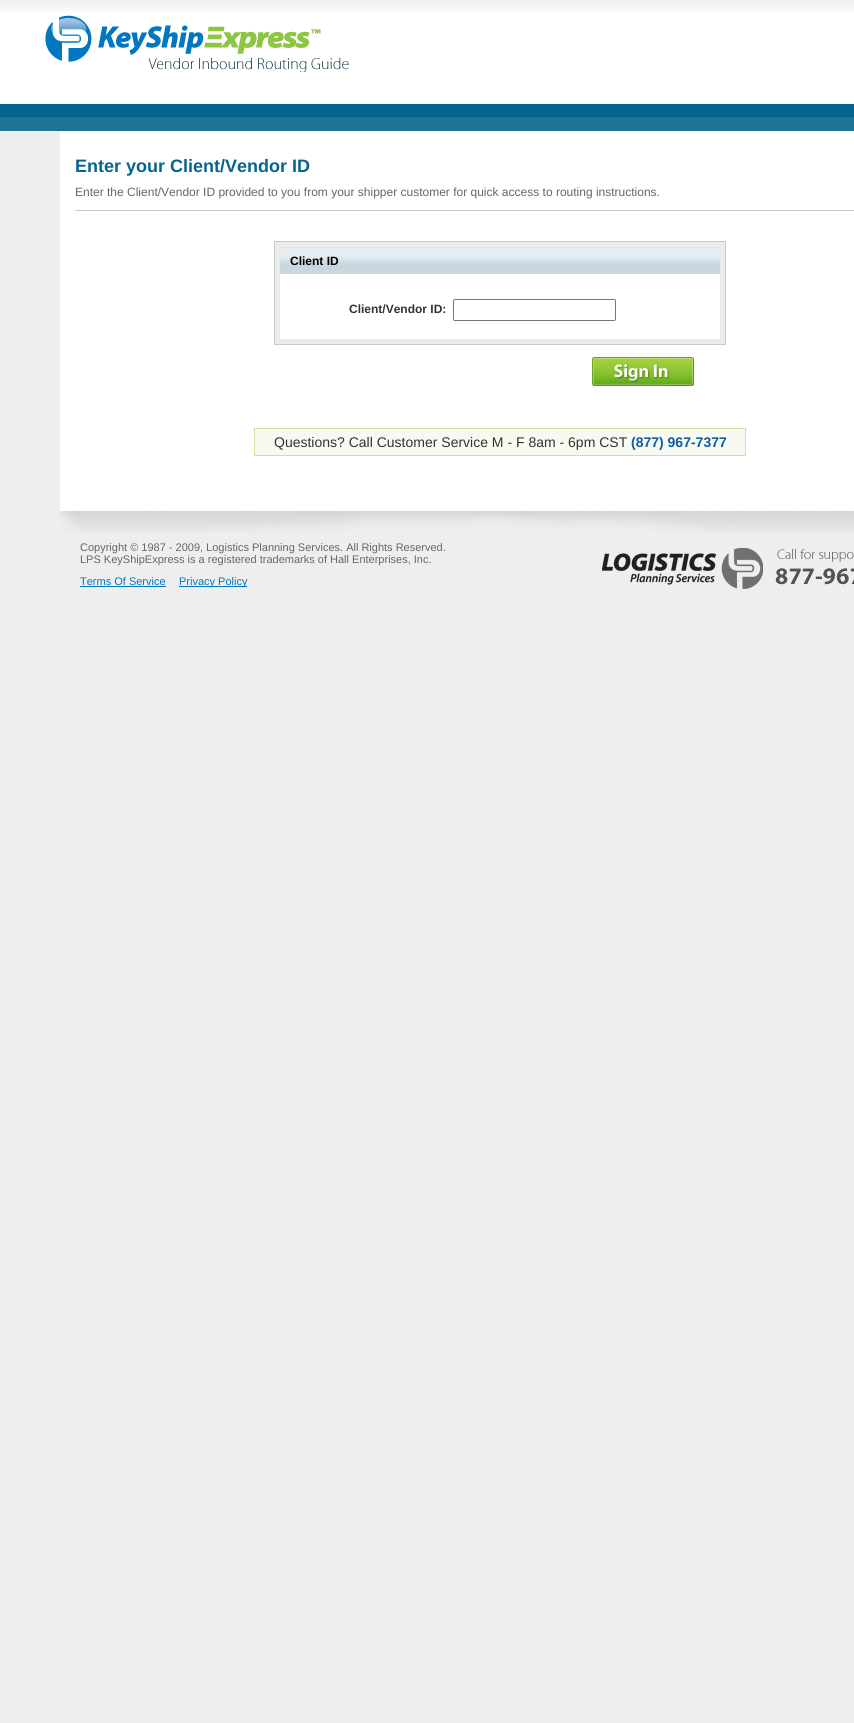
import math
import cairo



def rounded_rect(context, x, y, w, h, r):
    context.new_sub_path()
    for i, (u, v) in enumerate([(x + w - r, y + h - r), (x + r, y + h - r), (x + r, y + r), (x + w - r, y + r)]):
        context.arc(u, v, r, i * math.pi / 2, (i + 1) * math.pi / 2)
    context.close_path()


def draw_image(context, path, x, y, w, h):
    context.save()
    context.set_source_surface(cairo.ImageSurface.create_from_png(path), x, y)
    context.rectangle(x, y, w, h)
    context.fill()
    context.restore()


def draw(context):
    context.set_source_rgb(238 / 255, 238 / 255, 238 / 255)
    context.paint()
    context.set_source_rgb(1, 1, 1)
    context.rectangle(0, 12, 854, 92)
    context.fill()
    draw_image(context, "images/1.png", 0, 0, 854, 12)
    draw_image(context, "images/2.png", 45, 15, 304, 57)
    draw_image(context, "images/3.png", 0, 104, 854, 27)
    context.rectangle(60, 131, 794, 380)
    context.fill()
    context.set_source_rgb(202 / 255, 202 / 255, 202 / 255)
    context.rectangle(75, 210, 779, 1)
    context.fill()
    context.set_source_rgb(236 / 255, 236 / 255, 236 / 255)
    context.rectangle(274.5, 241.5, 451, 103)
    context.fill_preserve()
    context.set_source_rgb(202 / 255, 202 / 255, 202 / 255)
    context.set_line_width(1)
    context.stroke()
    draw_image(context, "images/4.png", 280, 247, 440, 27)
    context.set_source_rgb(1, 1, 1)
    context.rectangle(280, 274, 440, 65)
    context.fill()
    rounded_rect(context, 453.5, 299.5, 162, 21, 1.5)
    context.set_source_rgb(118 / 255, 118 / 255, 118 / 255)
    context.stroke()
    draw_image(context, "images/5.png", 592, 357, 102, 29)
    context.set_source_rgb(247 / 255, 250 / 255, 241 / 255)
    context.rectangle(254.5, 428.5, 491, 27)
    context.fill_preserve()
    context.set_source_rgb(202 / 255, 226 / 255, 164 / 255)
    context.stroke()
    draw_image(context, "images/6.png", 60, 511, 794, 22)
    context.set_source_rgb(0, 119 / 255, 192 / 255)
    context.rectangle(80, 586, 86, 1)
    context.fill()
    context.rectangle(179, 586, 68, 1)
    context.fill()
    draw_image(context, "images/7.png", 602, 548, 252, 41)
    context.select_font_face("Liberation Sans", cairo.FontSlant.NORMAL, cairo.FontWeight.BOLD)
    context.set_font_size(18)
    context.set_source_rgb(6 / 255, 101 / 255, 141 / 255)
    context.move_to(75, 172)
    context.show_text("Enter your Client/Vendor ID")
    context.select_font_face("Liberation Sans")
    context.set_font_size(12)
    context.set_source_rgb(102 / 255, 102 / 255, 102 / 255)
    context.move_to(75, 196)
    context.show_text("Enter the Client/Vendor ID provided to you from your shipper customer for quick access to routing instructions.")
    context.select_font_face("Liberation Sans", cairo.FontSlant.NORMAL, cairo.FontWeight.BOLD)
    context.set_source_rgb(0, 0, 0)
    context.move_to(290, 265)
    context.show_text("Client ID")
    context.set_source_rgb(51 / 255, 51 / 255, 51 / 255)
    context.move_to(349, 313)
    context.show_text("Client/Vendor ID:")
    context.select_font_face("Liberation Sans")
    context.set_font_size(14)
    context.move_to(274, 447)
    context.show_text("Questions? Call Customer Service M - F 8am - 6pm CST")
    context.select_font_face("Liberation Sans", cairo.FontSlant.NORMAL, cairo.FontWeight.BOLD)
    context.set_source_rgb(15 / 255, 93 / 255, 165 / 255)
    context.move_to(631, 447)
    context.show_text("(877) 967-7377")
    context.select_font_face("Liberation Sans")
    context.set_font_size(11)
    context.set_source_rgb(102 / 255, 102 / 255, 102 / 255)
    context.move_to(80, 551)
    context.show_text("Copyright © 1987 - 2009, Logistics Planning Services. All Rights Reserved.")
    context.move_to(80, 563)
    context.show_text("LPS KeyShipExpress is a registered trademarks of Hall Enterprises, Inc.")
    context.set_source_rgb(0, 119 / 255, 192 / 255)
    context.move_to(80, 585)
    context.show_text("Terms Of Service")
    context.move_to(179, 585)
    context.show_text("Privacy Policy")


surface = cairo.ImageSurface(cairo.Format.RGB24, 854, 1723)
context = cairo.Context(surface)
options = cairo.FontOptions()
options.set_hint_metrics(cairo.HintMetrics.OFF)
options.set_hint_style(cairo.HintStyle.NONE)
context.set_font_options(options)
context.set_miter_limit(4)
draw(context)
surface.write_to_png("out.png")
